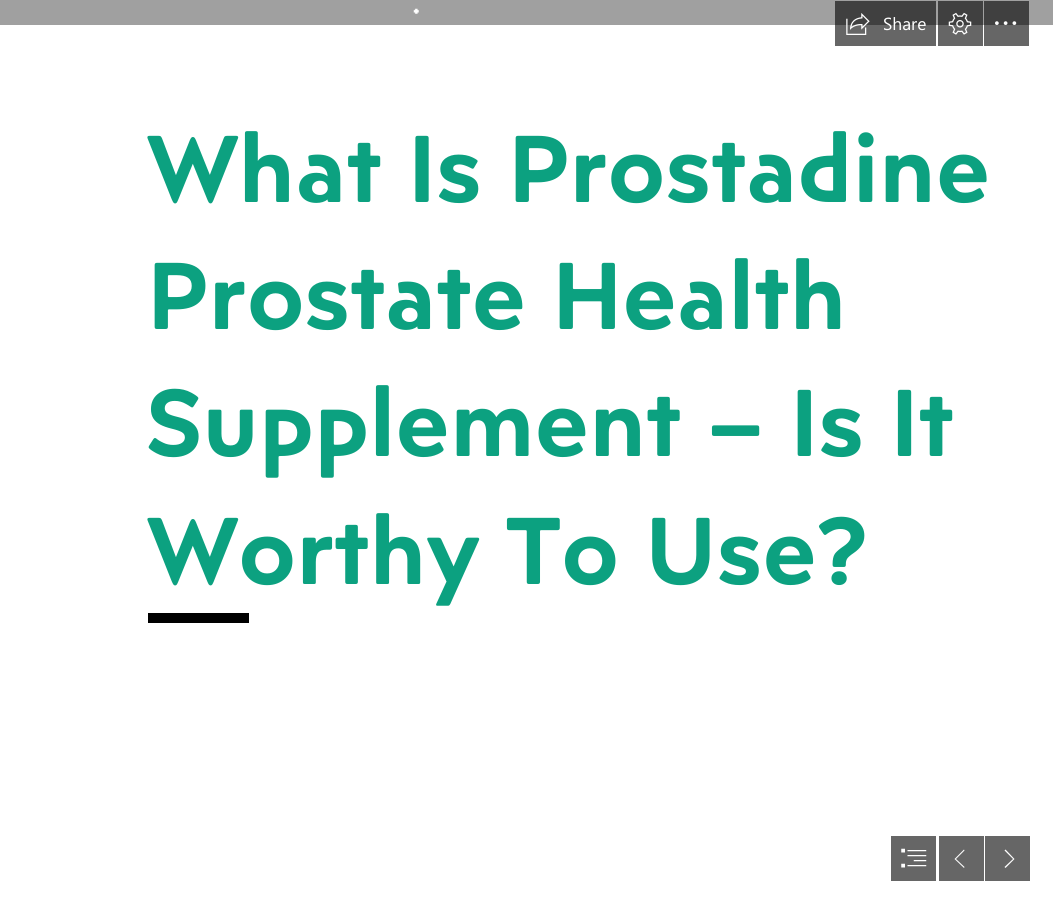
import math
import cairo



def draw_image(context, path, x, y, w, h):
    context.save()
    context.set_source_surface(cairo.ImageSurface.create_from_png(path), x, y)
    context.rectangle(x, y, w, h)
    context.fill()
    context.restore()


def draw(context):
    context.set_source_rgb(1, 1, 1)
    context.paint()
    context.set_source_rgb(160 / 255, 160 / 255, 160 / 255)
    context.rectangle(0, 0, 1053, 25)
    context.fill()
    context.set_source_rgba(0, 0, 0, 0.6)
    context.rectangle(835, 1, 101, 45)
    context.fill()
    draw_image(context, "images/1.png", 846, 13, 24, 22)
    context.rectangle(938, 1, 45, 45)
    context.fill()
    draw_image(context, "images/2.png", 948, 12, 24, 23)
    context.rectangle(984, 1, 45, 45)
    context.fill()
    draw_image(context, "images/3.png", 995, 21, 22, 4)
    draw_image(context, "images/4.png", 413, 8, 6, 6)
    context.set_source_rgb(0, 0, 0)
    context.rectangle(148, 613, 101, 10)
    context.fill()
    context.set_source_rgb(102 / 255, 102 / 255, 102 / 255)
    context.rectangle(891, 836, 45, 45)
    context.fill()
    draw_image(context, "images/5.png", 901, 848, 26, 20)
    context.rectangle(939, 836, 45, 45)
    context.fill()
    context.set_source_rgb(1, 1, 1)
    context.new_path()
    context.move_to(954.5, 859)
    context.line_to(964, 849.5)
    context.line_to(964.5, 850.5)
    context.line_to(956, 859)
    context.line_to(964.5, 867)
    context.line_to(964, 868)
    context.close_path()
    context.fill()
    context.set_source_rgb(102 / 255, 102 / 255, 102 / 255)
    context.rectangle(985, 836, 45, 45)
    context.fill()
    context.set_source_rgb(1, 1, 1)
    context.new_path()
    context.move_to(1005.5, 868)
    context.line_to(1004.5, 867)
    context.line_to(1013, 859)
    context.line_to(1004.5, 850.5)
    context.line_to(1005.5, 849.5)
    context.line_to(1014.5, 859)
    context.close_path()
    context.fill()
    context.select_font_face("Segoe UI")
    context.set_font_size(17.5)
    context.move_to(883, 30)
    context.show_text("Share")
    context.select_font_face("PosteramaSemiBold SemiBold")
    context.set_font_size(94.5)
    context.set_source_rgb(12 / 255, 161 / 255, 128 / 255)
    context.move_to(147, 202)
    context.show_text("What Is Prostadine")
    context.move_to(147, 329)
    context.show_text("Prostate Health")
    context.move_to(147, 456)
    context.show_text("Supplement – Is It")
    context.move_to(147, 584)
    context.show_text("Worthy To Use?")


surface = cairo.ImageSurface(cairo.Format.RGB24, 1053, 907)
context = cairo.Context(surface)
options = cairo.FontOptions()
options.set_hint_metrics(cairo.HintMetrics.OFF)
options.set_hint_style(cairo.HintStyle.NONE)
context.set_font_options(options)
context.set_miter_limit(4)
draw(context)
surface.write_to_png("out.png")
